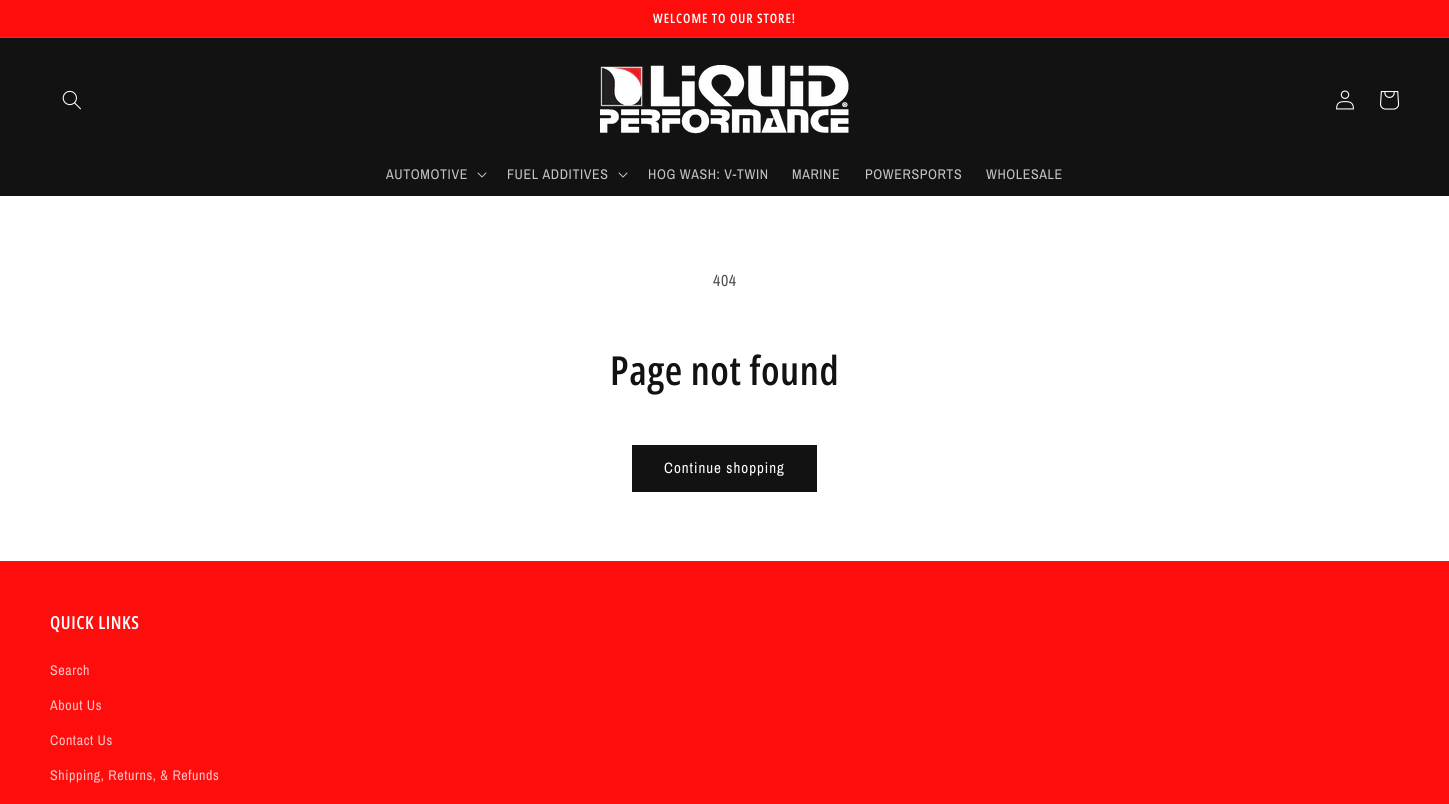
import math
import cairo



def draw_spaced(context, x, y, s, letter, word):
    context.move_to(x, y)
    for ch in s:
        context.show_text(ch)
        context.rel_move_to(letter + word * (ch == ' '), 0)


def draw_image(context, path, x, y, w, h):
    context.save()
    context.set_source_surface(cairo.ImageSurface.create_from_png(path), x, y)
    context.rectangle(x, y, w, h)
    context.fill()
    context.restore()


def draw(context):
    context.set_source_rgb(1, 1, 1)
    context.paint()
    context.set_source_rgb(1, 13 / 255, 13 / 255)
    context.rectangle(0, 0, 1449, 37)
    context.fill()
    context.set_source_rgb(1, 32 / 255, 32 / 255)
    context.rectangle(0, 37, 1449, 1)
    context.fill()
    context.set_source_rgb(18 / 255, 18 / 255, 18 / 255)
    context.rectangle(0, 38, 1449, 158)
    context.fill()
    draw_image(context, "images/1.png", 62, 90, 19, 20)
    draw_image(context, "images/2.png", 600, 65, 249, 69)
    draw_image(context, "images/3.png", 1336, 90, 18, 20)
    draw_image(context, "images/4.png", 1380, 91, 20, 19)
    draw_image(context, "images/5.png", 477, 172, 10, 6)
    draw_image(context, "images/5.png", 618, 172, 10, 6)
    context.rectangle(632.5, 445.5, 184, 46)
    context.set_line_width(1)
    context.stroke()
    context.rectangle(633, 446, 183, 45)
    context.fill()
    context.set_source_rgb(1, 13 / 255, 13 / 255)
    context.rectangle(0, 561, 1449, 243)
    context.fill()
    context.select_font_face("Open Sans Condensed SemiBold")
    context.set_font_size(13)
    context.set_source_rgb(1, 1, 1)
    draw_spaced(context, 653, 23, "WELCOME TO OUR STORE!", 1, 0)
    context.select_font_face("Archivo Narrow")
    context.set_font_size(14)
    context.set_source_rgb(196 / 255, 196 / 255, 196 / 255)
    draw_spaced(context, 386, 179, "AUTOMOTIVE", 0.6, 0)
    draw_spaced(context, 507, 179, "FUEL ADDITIVES", 0.6, 0)
    draw_spaced(context, 648, 179, "HOG WASH: V-TWIN", 0.6, 0)
    draw_spaced(context, 792, 179, "MARINE", 0.6, 0)
    draw_spaced(context, 865, 179, "POWERSPORTS", 0.6, 0)
    draw_spaced(context, 986, 179, "WHOLESALE", 0.6, 0)
    context.set_font_size(16)
    context.set_source_rgb(77 / 255, 77 / 255, 77 / 255)
    draw_spaced(context, 713, 286, "404", 0.6, 0)
    context.select_font_face("Open Sans Condensed SemiBold")
    context.set_font_size(40)
    context.set_source_rgb(18 / 255, 18 / 255, 18 / 255)
    draw_spaced(context, 610, 385, "Page not found", 0.6, 0)
    context.select_font_face("Archivo Narrow")
    context.set_font_size(15)
    context.set_source_rgb(1, 1, 1)
    draw_spaced(context, 664, 473, "Continue shopping", 1, 0)
    context.select_font_face("Open Sans Condensed SemiBold")
    context.set_font_size(18)
    draw_spaced(context, 50, 629, "QUICK LINKS", 0.6, 0)
    context.select_font_face("Archivo Narrow")
    context.set_font_size(14)
    context.set_source_rgb(1, 195 / 255, 195 / 255)
    draw_spaced(context, 50, 675, "Search", 0.6, 0)
    draw_spaced(context, 50, 710, "About Us", 0.6, 0)
    draw_spaced(context, 50, 745, "Contact Us", 0.6, 0)
    draw_spaced(context, 50, 780, "Shipping, Returns, & Refunds", 0.6, 0)


surface = cairo.ImageSurface(cairo.Format.RGB24, 1449, 804)
context = cairo.Context(surface)
options = cairo.FontOptions()
options.set_hint_metrics(cairo.HintMetrics.OFF)
options.set_hint_style(cairo.HintStyle.NONE)
context.set_font_options(options)
context.set_miter_limit(4)
draw(context)
surface.write_to_png("out.png")
